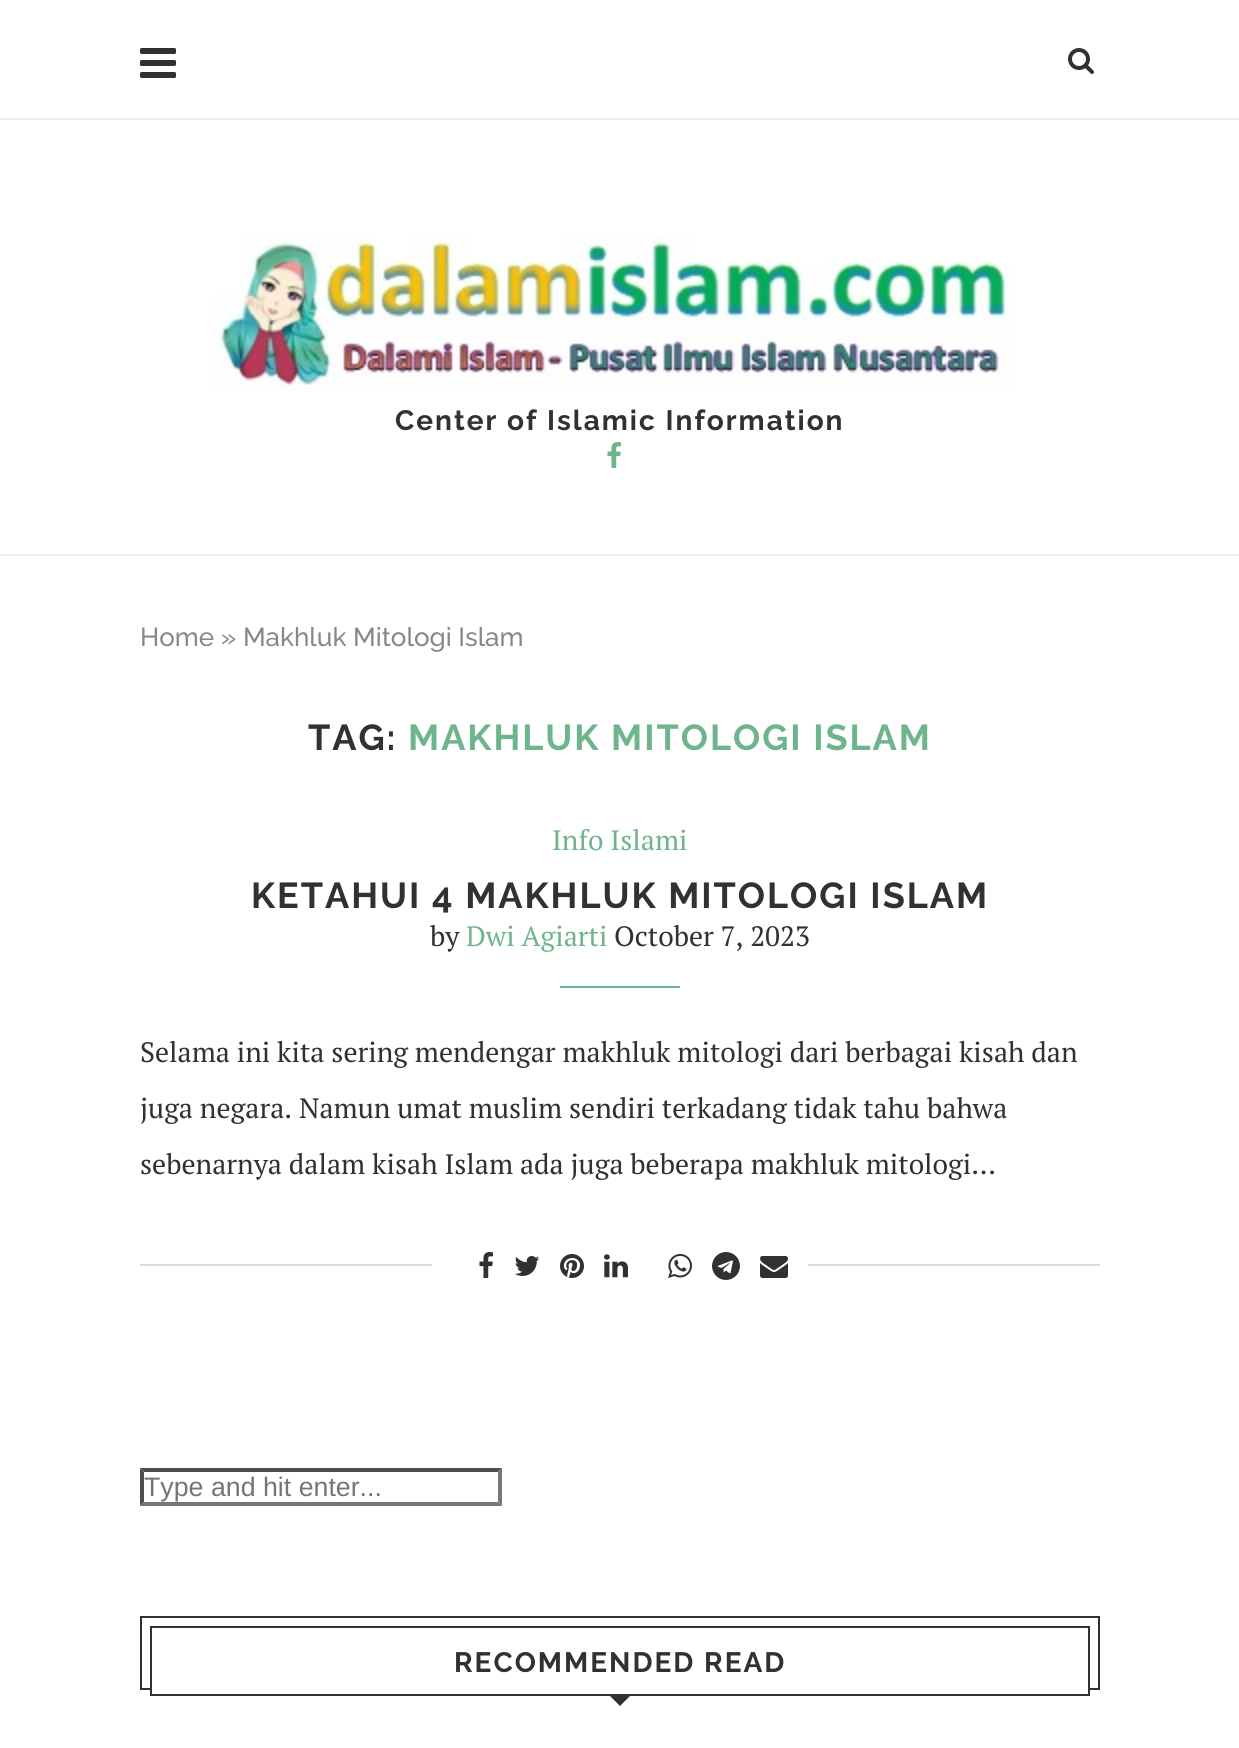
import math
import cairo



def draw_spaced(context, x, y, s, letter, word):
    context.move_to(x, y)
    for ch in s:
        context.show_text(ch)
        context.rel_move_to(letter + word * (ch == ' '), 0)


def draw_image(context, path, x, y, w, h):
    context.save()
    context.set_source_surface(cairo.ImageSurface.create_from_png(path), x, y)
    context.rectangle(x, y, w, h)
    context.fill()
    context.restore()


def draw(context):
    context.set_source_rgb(1, 1, 1)
    context.paint()
    context.set_source_rgb(236 / 255, 236 / 255, 236 / 255)
    context.rectangle(0, 118, 1239, 2)
    context.fill()
    draw_image(context, "images/1.png", 140, 48, 36, 30)
    draw_image(context, "images/2.png", 1068, 48, 26, 26)
    context.rectangle(0, 554, 1239, 2)
    context.fill()
    draw_image(context, "images/3.png", 214, 232, 800, 161)
    draw_image(context, "images/4.png", 607, 442, 14, 26)
    context.set_source_rgb(110 / 255, 180 / 255, 140 / 255)
    context.rectangle(560, 986, 120, 2)
    context.fill()
    context.set_source_rgb(222 / 255, 222 / 255, 222 / 255)
    context.rectangle(140, 1264, 960, 2)
    context.fill()
    context.set_source_rgb(1, 1, 1)
    context.rectangle(432, 1264, 376, 2)
    context.fill()
    draw_image(context, "images/5.png", 479, 1252, 14, 26)
    draw_image(context, "images/6.png", 514, 1256, 26, 20)
    draw_image(context, "images/7.png", 560, 1254, 24, 24)
    draw_image(context, "images/8.png", 604, 1254, 24, 24)
    draw_image(context, "images/9.png", 668, 1253, 24, 25)
    draw_image(context, "images/10.png", 712, 1252, 28, 28)
    draw_image(context, "images/11.png", 760, 1256, 28, 22)
    context.set_source_rgb(79 / 255, 79 / 255, 79 / 255)
    context.new_path()
    context.move_to(140, 1468)
    context.line_to(502, 1468)
    context.line_to(498, 1472)
    context.line_to(144, 1472)
    context.close_path()
    context.fill()
    context.set_source_rgb(118 / 255, 118 / 255, 118 / 255)
    context.new_path()
    context.move_to(502, 1468)
    context.line_to(502, 1506)
    context.line_to(498, 1502)
    context.line_to(498, 1472)
    context.close_path()
    context.fill()
    context.new_path()
    context.move_to(502, 1506)
    context.line_to(140, 1506)
    context.line_to(144, 1502)
    context.line_to(498, 1502)
    context.close_path()
    context.fill()
    context.set_source_rgb(79 / 255, 79 / 255, 79 / 255)
    context.new_path()
    context.move_to(140, 1506)
    context.line_to(140, 1468)
    context.line_to(144, 1472)
    context.line_to(144, 1502)
    context.close_path()
    context.fill()
    context.rectangle(141, 1617, 958, 72)
    context.set_source_rgb(49 / 255, 49 / 255, 49 / 255)
    context.stroke()
    context.set_source_rgb(1, 1, 1)
    context.rectangle(152, 1688, 936, 2)
    context.fill()
    context.rectangle(151, 1627, 938, 68)
    context.set_source_rgb(49 / 255, 49 / 255, 49 / 255)
    context.stroke()
    context.new_path()
    context.move_to(608, 1694)
    context.line_to(632, 1694)
    context.line_to(620, 1706)
    context.close_path()
    context.fill()
    context.select_font_face("Raleway", cairo.FontSlant.NORMAL, cairo.FontWeight.BOLD)
    context.set_font_size(28)
    draw_spaced(context, 395, 430, "Center of Islamic Information", 2, 0)
    context.select_font_face("Raleway Medium")
    context.set_font_size(26)
    context.set_source_rgb(136 / 255, 136 / 255, 136 / 255)
    context.move_to(140, 646)
    context.show_text("Home » Makhluk Mitologi Islam")
    context.select_font_face("Raleway", cairo.FontSlant.NORMAL, cairo.FontWeight.BOLD)
    context.set_font_size(36)
    context.set_source_rgb(49 / 255, 49 / 255, 49 / 255)
    draw_spaced(context, 308, 750, "TAG:", 2, 0)
    context.set_source_rgb(110 / 255, 180 / 255, 140 / 255)
    draw_spaced(context, 408, 750, "MAKHLUK MITOLOGI ISLAM", 2, 0)
    context.select_font_face("PT Serif")
    context.set_font_size(28)
    context.move_to(552, 850)
    context.show_text("Info Islami")
    context.select_font_face("Raleway", cairo.FontSlant.NORMAL, cairo.FontWeight.BOLD)
    context.set_font_size(36)
    context.set_source_rgb(49 / 255, 49 / 255, 49 / 255)
    draw_spaced(context, 251, 908, "KETAHUI 4 MAKHLUK MITOLOGI ISLAM", 2, 0)
    context.select_font_face("PT Serif")
    context.set_font_size(28)
    context.move_to(430, 946)
    context.show_text("by")
    context.set_source_rgb(110 / 255, 180 / 255, 140 / 255)
    context.move_to(466, 946)
    context.show_text("Dwi Agiarti")
    context.set_source_rgb(49 / 255, 49 / 255, 49 / 255)
    context.move_to(614, 946)
    context.show_text("October 7, 2023")
    context.move_to(140, 1062)
    context.show_text("Selama ini kita sering mendengar makhluk mitologi dari berbagai kisah dan")
    context.move_to(140, 1118)
    context.show_text("juga negara. Namun umat muslim sendiri terkadang tidak tahu bahwa")
    context.move_to(140, 1174)
    context.show_text("sebenarnya dalam kisah Islam ada juga beberapa makhluk mitologi…")
    context.select_font_face("Liberation Sans")
    context.set_font_size(26.75)
    context.set_source_rgb(117 / 255, 117 / 255, 117 / 255)
    context.move_to(144, 1496)
    context.show_text("Type and hit enter...")
    context.select_font_face("Raleway", cairo.FontSlant.NORMAL, cairo.FontWeight.BOLD)
    context.set_font_size(28)
    context.set_source_rgb(49 / 255, 49 / 255, 49 / 255)
    draw_spaced(context, 454, 1672, "RECOMMENDED READ", 2, 0)


surface = cairo.ImageSurface(cairo.Format.RGB24, 1239, 1748)
context = cairo.Context(surface)
options = cairo.FontOptions()
options.set_hint_metrics(cairo.HintMetrics.OFF)
options.set_hint_style(cairo.HintStyle.NONE)
context.set_font_options(options)
context.set_miter_limit(4)
draw(context)
surface.write_to_png("out.png")
